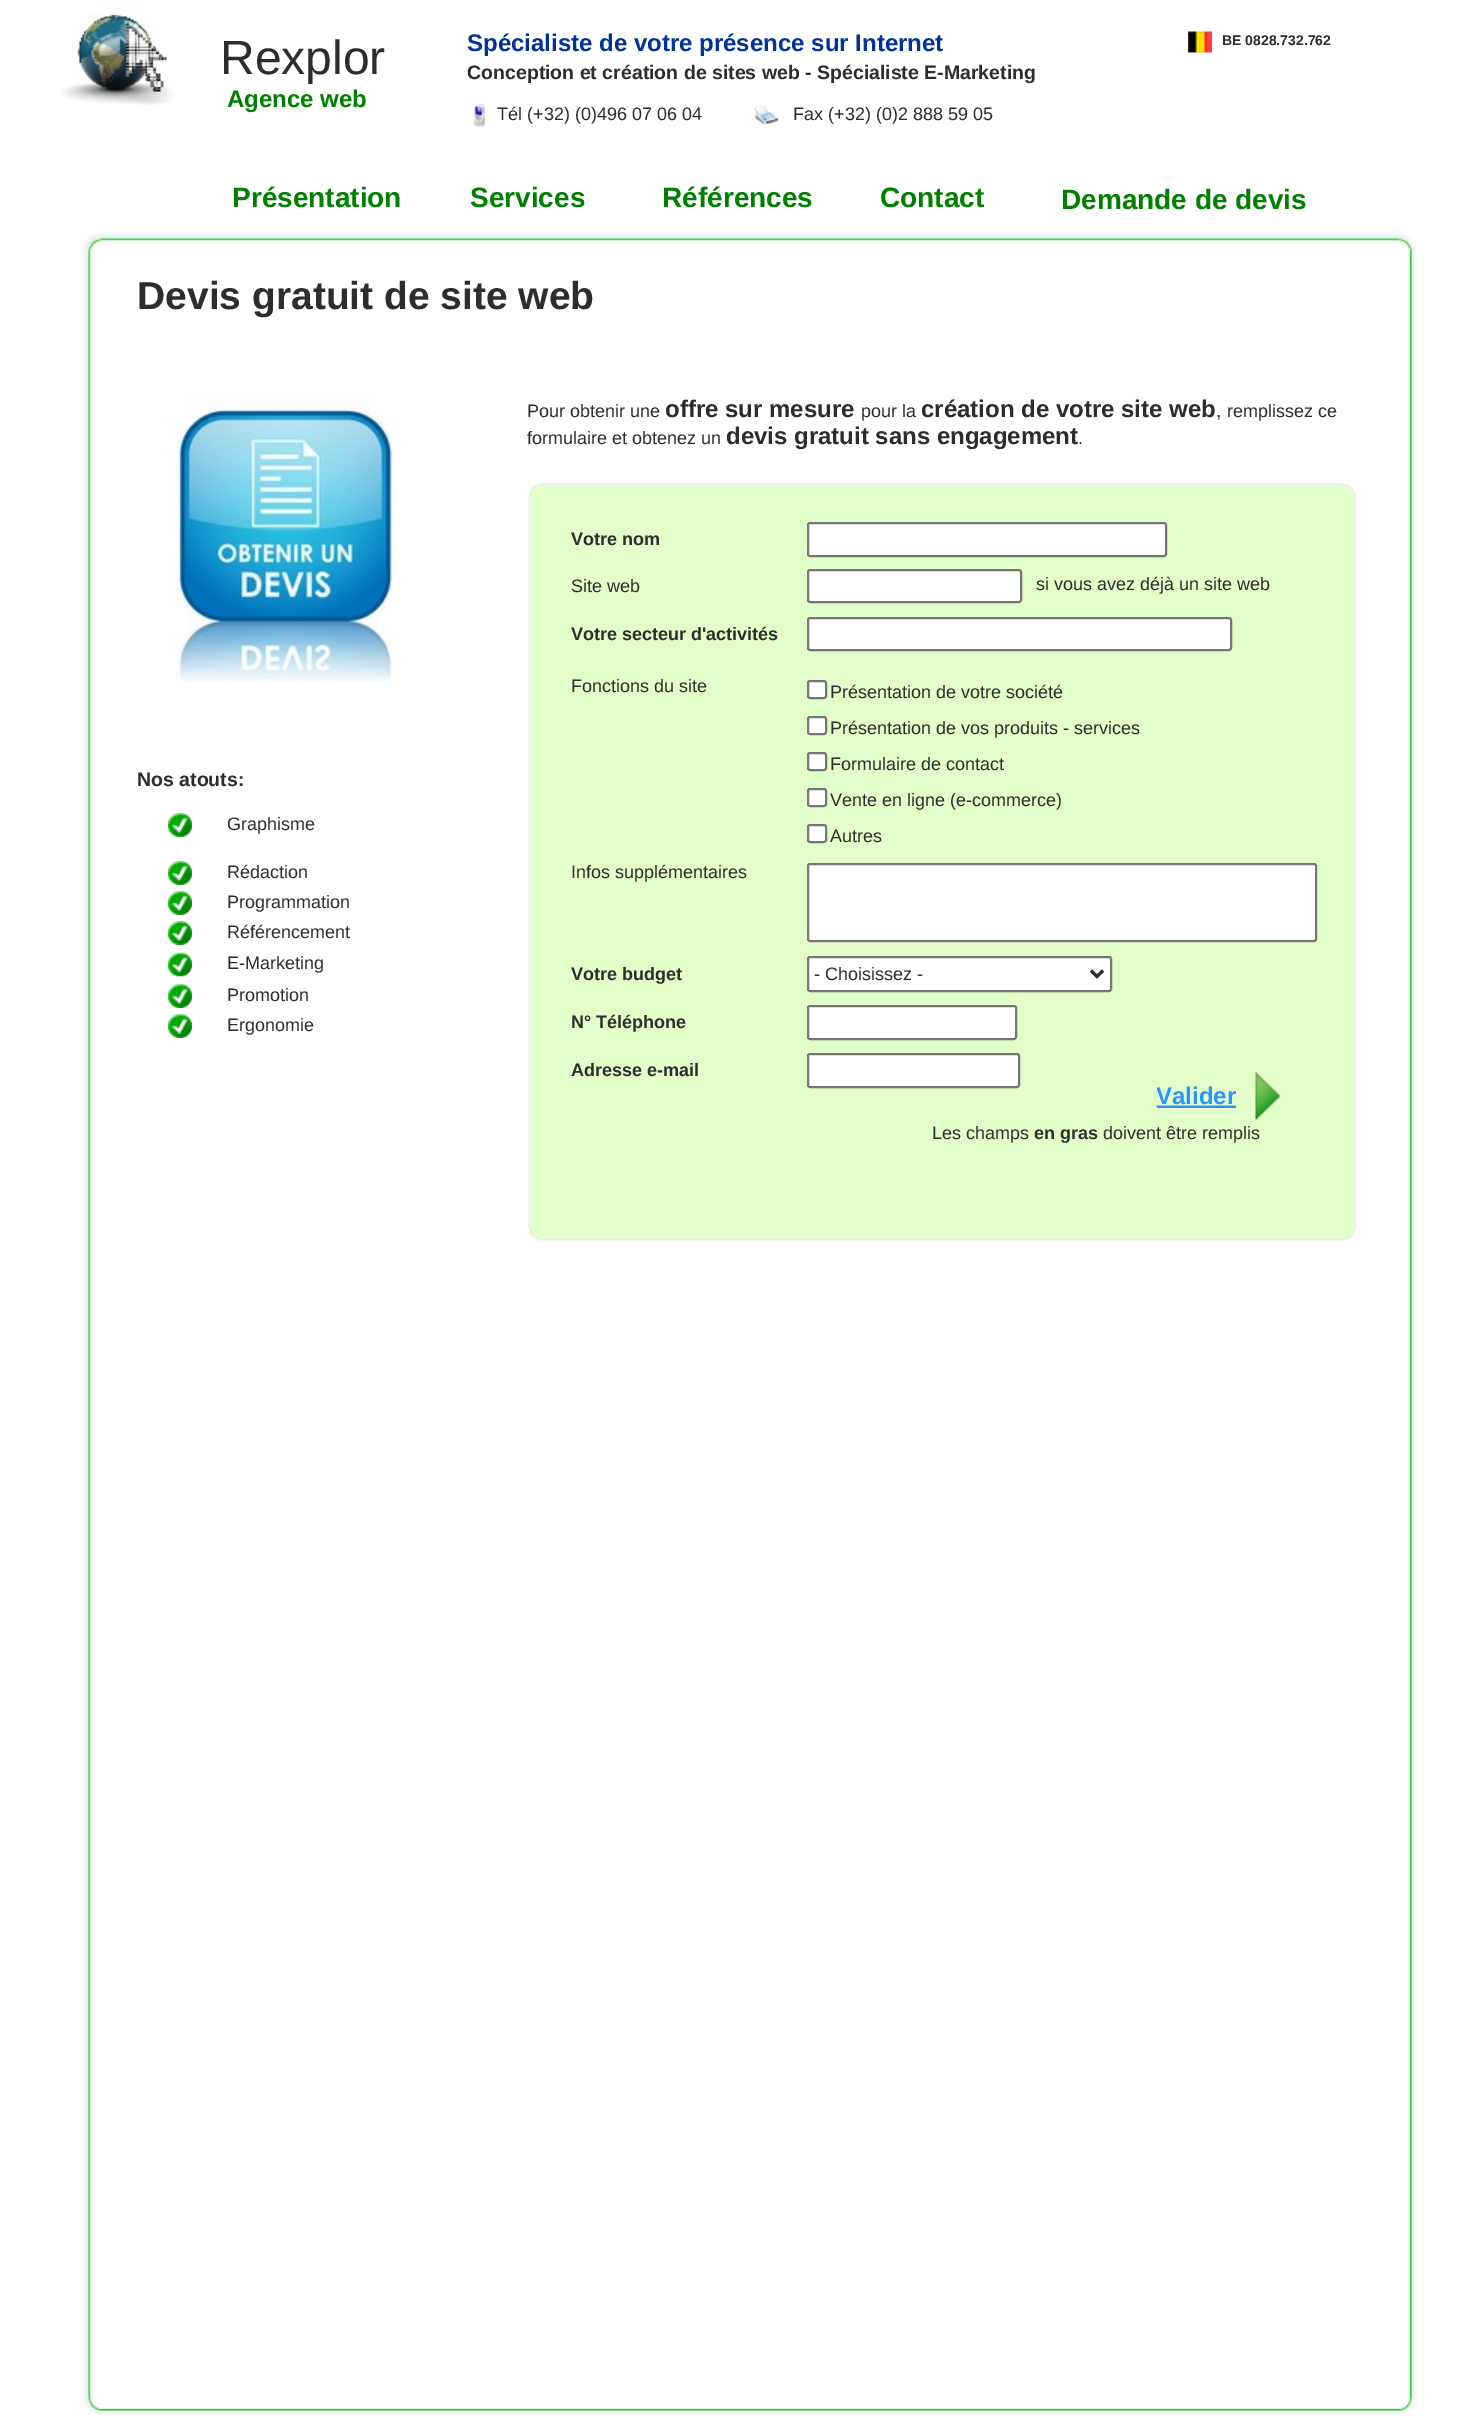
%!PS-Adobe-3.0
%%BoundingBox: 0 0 1468 2420
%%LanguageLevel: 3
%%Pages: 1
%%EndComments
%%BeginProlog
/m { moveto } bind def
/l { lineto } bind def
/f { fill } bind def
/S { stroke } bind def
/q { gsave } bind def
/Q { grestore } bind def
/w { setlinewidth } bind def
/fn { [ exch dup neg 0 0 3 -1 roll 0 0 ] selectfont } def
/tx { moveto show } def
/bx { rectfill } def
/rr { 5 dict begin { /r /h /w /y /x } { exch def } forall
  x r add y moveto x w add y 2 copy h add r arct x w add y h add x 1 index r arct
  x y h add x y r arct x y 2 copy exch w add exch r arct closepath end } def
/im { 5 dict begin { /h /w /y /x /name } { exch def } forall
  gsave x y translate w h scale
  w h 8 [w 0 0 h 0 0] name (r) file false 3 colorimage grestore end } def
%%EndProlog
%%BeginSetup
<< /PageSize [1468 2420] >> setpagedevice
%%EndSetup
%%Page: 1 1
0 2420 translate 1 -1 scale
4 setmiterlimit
1 setgray
0 0 1468 2420 bx
(image0.raw) 60 0 115 105 im
/LiberationSans-Regular 48 fn
0.176 setgray
(Rexplor) 220 74 tx
/LiberationSans-Bold 24 fn
0 0.2 0.6 setrgbcolor
(Spécialiste de votre présence sur Internet) 467 51 tx
(image1.raw) 1188 31 24 22 im
/LiberationSans-Bold 14 fn
0.176 setgray
(BE 0828.732.762) 1222 45 tx
/LiberationSans-Bold 19.5 fn
(Conception et création de sites web - Spécialiste E-Marketing) 467 79 tx
/LiberationSans-Bold 24 fn
0 0.502 0 setrgbcolor
(Agence web) 227 107 tx
(image2.raw) 473 103 12 25 im
/LiberationSans-Regular 18 fn
0.176 setgray
(Tél \(+32\) \(0\)496 07 06 04) 497 120 tx
(image3.raw) 754 105 25 20 im
(Fax \(+32\) \(0\)2 888 59 05) 793 120 tx
/LiberationSans-Bold 28 fn
0 0.502 0 setrgbcolor
(Présentation) 232 207 tx
(Services) 470 207 tx
(Références) 662 207 tx
(Contact) 880 207 tx
(Demande de devis) 1061 209 tx
(image4.raw) 82 232 23 23 im
(image5.raw) 105 232 1290 10 im
(image6.raw) 1395 232 21 23 im
(image7.raw) 82 255 9 2139 im
/LiberationSans-Bold 39 fn
0.176 setgray
(Devis gratuit de site web) 137 309 tx
(image8.raw) 163 393 238 289 im
/LiberationSans-Regular 18 fn
(Pour obtenir une) 527 417 tx
/LiberationSans-Bold 24 fn
(offre sur mesure) 665 417 tx
/LiberationSans-Regular 18 fn
(pour la) 861 417 tx
/LiberationSans-Bold 24 fn
(création de votre site web) 921 417 tx
/LiberationSans-Regular 19.5 fn
(,) 1216 417 tx
/LiberationSans-Regular 18 fn
(remplissez ce) 1227 417 tx
(formulaire et obtenez un) 527 444 tx
/LiberationSans-Bold 24 fn
(devis gratuit sans engagement) 726 444 tx
/LiberationSans-Regular 18 fn
(.) 1078 444 tx
/LiberationSans-Bold 19.5 fn
(Nos atouts:) 137 786 tx
(image9.raw) 528 483 15 15 im
(image10.raw) 543 483 798 15 im
(image11.raw) 1341 483 15 15 im
(image12.raw) 528 498 15 728 im
0.89 1 0.788 setrgbcolor
543 498 798 728 bx
/LiberationSans-Bold 18 fn
0.176 setgray
(Votre nom) 571 545 tx
1 setgray
808 523 358 33 2 rr q f Q
0.463 setgray
2 w
S
/LiberationSans-Regular 18 fn
0.176 setgray
(Site web) 571 592 tx
1 setgray
808 570 213 32 2 rr q f Q
0.463 setgray
S
0.176 setgray
(si vous avez déjà un site web) 1036 590 tx
/LiberationSans-Bold 18 fn
(Votre secteur d'activités) 571 640 tx
1 setgray
808 618 423 32 2 rr q f Q
0.463 setgray
S
/LiberationSans-Regular 18 fn
0.176 setgray
(Fonctions du site) 571 692 tx
1 setgray
808 681 18 17 2 rr q f Q
0.463 setgray
S
0.176 setgray
(Présentation de votre société) 830 698 tx
1 setgray
808 717 18 17 2 rr q f Q
0.463 setgray
S
0.176 setgray
(Présentation de vos produits - services) 830 734 tx
1 setgray
808 753 18 17 2 rr q f Q
0.463 setgray
S
0.176 setgray
(Formulaire de contact) 830 770 tx
1 setgray
808 789 18 17 2 rr q f Q
0.463 setgray
S
0.176 setgray
(Vente en ligne \(e-commerce\)) 830 806 tx
1 setgray
808 825 18 17 2 rr q f Q
0.463 setgray
S
0.176 setgray
(Autres) 830 842 tx
(Infos supplémentaires) 571 878 tx
1 setgray
808 864 508 77 2 rr q f Q
0.463 setgray
S
/LiberationSans-Bold 18 fn
0.176 setgray
(Votre budget) 571 980 tx
1 setgray
808 957 303 34 2 rr q f Q
0.463 setgray
S
0.176 setgray
3 w
1091 970.5 m 1097 976.5 l 1103 970.5 l S
/LiberationSans-Regular 18 fn
(- Choisissez -) 814 980 tx
/LiberationSans-Bold 18 fn
(N° Téléphone) 571 1028 tx
1 setgray
808 1006 208 33 2 rr q f Q
0.463 setgray
2 w
S
0.176 setgray
(Adresse e-mail) 571 1076 tx
1 setgray
808 1054 211 33 2 rr q f Q
0.463 setgray
S
(image13.raw) 1255 1072 25 49 im
(image14.raw) 1156 1105 80 2 im
q
1157 1071 135 50 rectclip
/LiberationSans-Bold 24 fn
0.169 0.576 1 setrgbcolor
(Valider) 1156 1104 tx
Q
0.169 0.576 1 setrgbcolor
1157 1106 79 2 bx
/LiberationSans-Regular 18 fn
0.176 setgray
(Les champs) 932 1139 tx
/LiberationSans-Bold 18 fn
(en gras) 1034 1139 tx
/LiberationSans-Regular 18 fn
(doivent être remplis) 1103 1139 tx
(image15.raw) 1341 498 15 728 im
(image16.raw) 528 1225 15 16 im
(image17.raw) 543 1226 798 15 im
(image18.raw) 1341 1225 15 16 im
(image19.raw) 168 813 24 24 im
(Graphisme) 227 830 tx
(image19.raw) 168 861 24 24 im
(Rédaction) 227 878 tx
(image19.raw) 168 891 24 24 im
(Programmation) 227 908 tx
(image19.raw) 168 921 24 24 im
(Référencement) 227 938 tx
(image20.raw) 168 952 24 25 im
(E-Marketing) 227 969 tx
(image19.raw) 168 984 24 24 im
(Promotion) 227 1001 tx
(image19.raw) 168 1014 24 24 im
(Ergonomie) 227 1031 tx
(image21.raw) 1409 255 7 2139 im
(image22.raw) 82 2394 23 21 im
(image23.raw) 105 2408 1290 7 im
(image24.raw) 1395 2394 21 21 im
showpage
%%EOF
